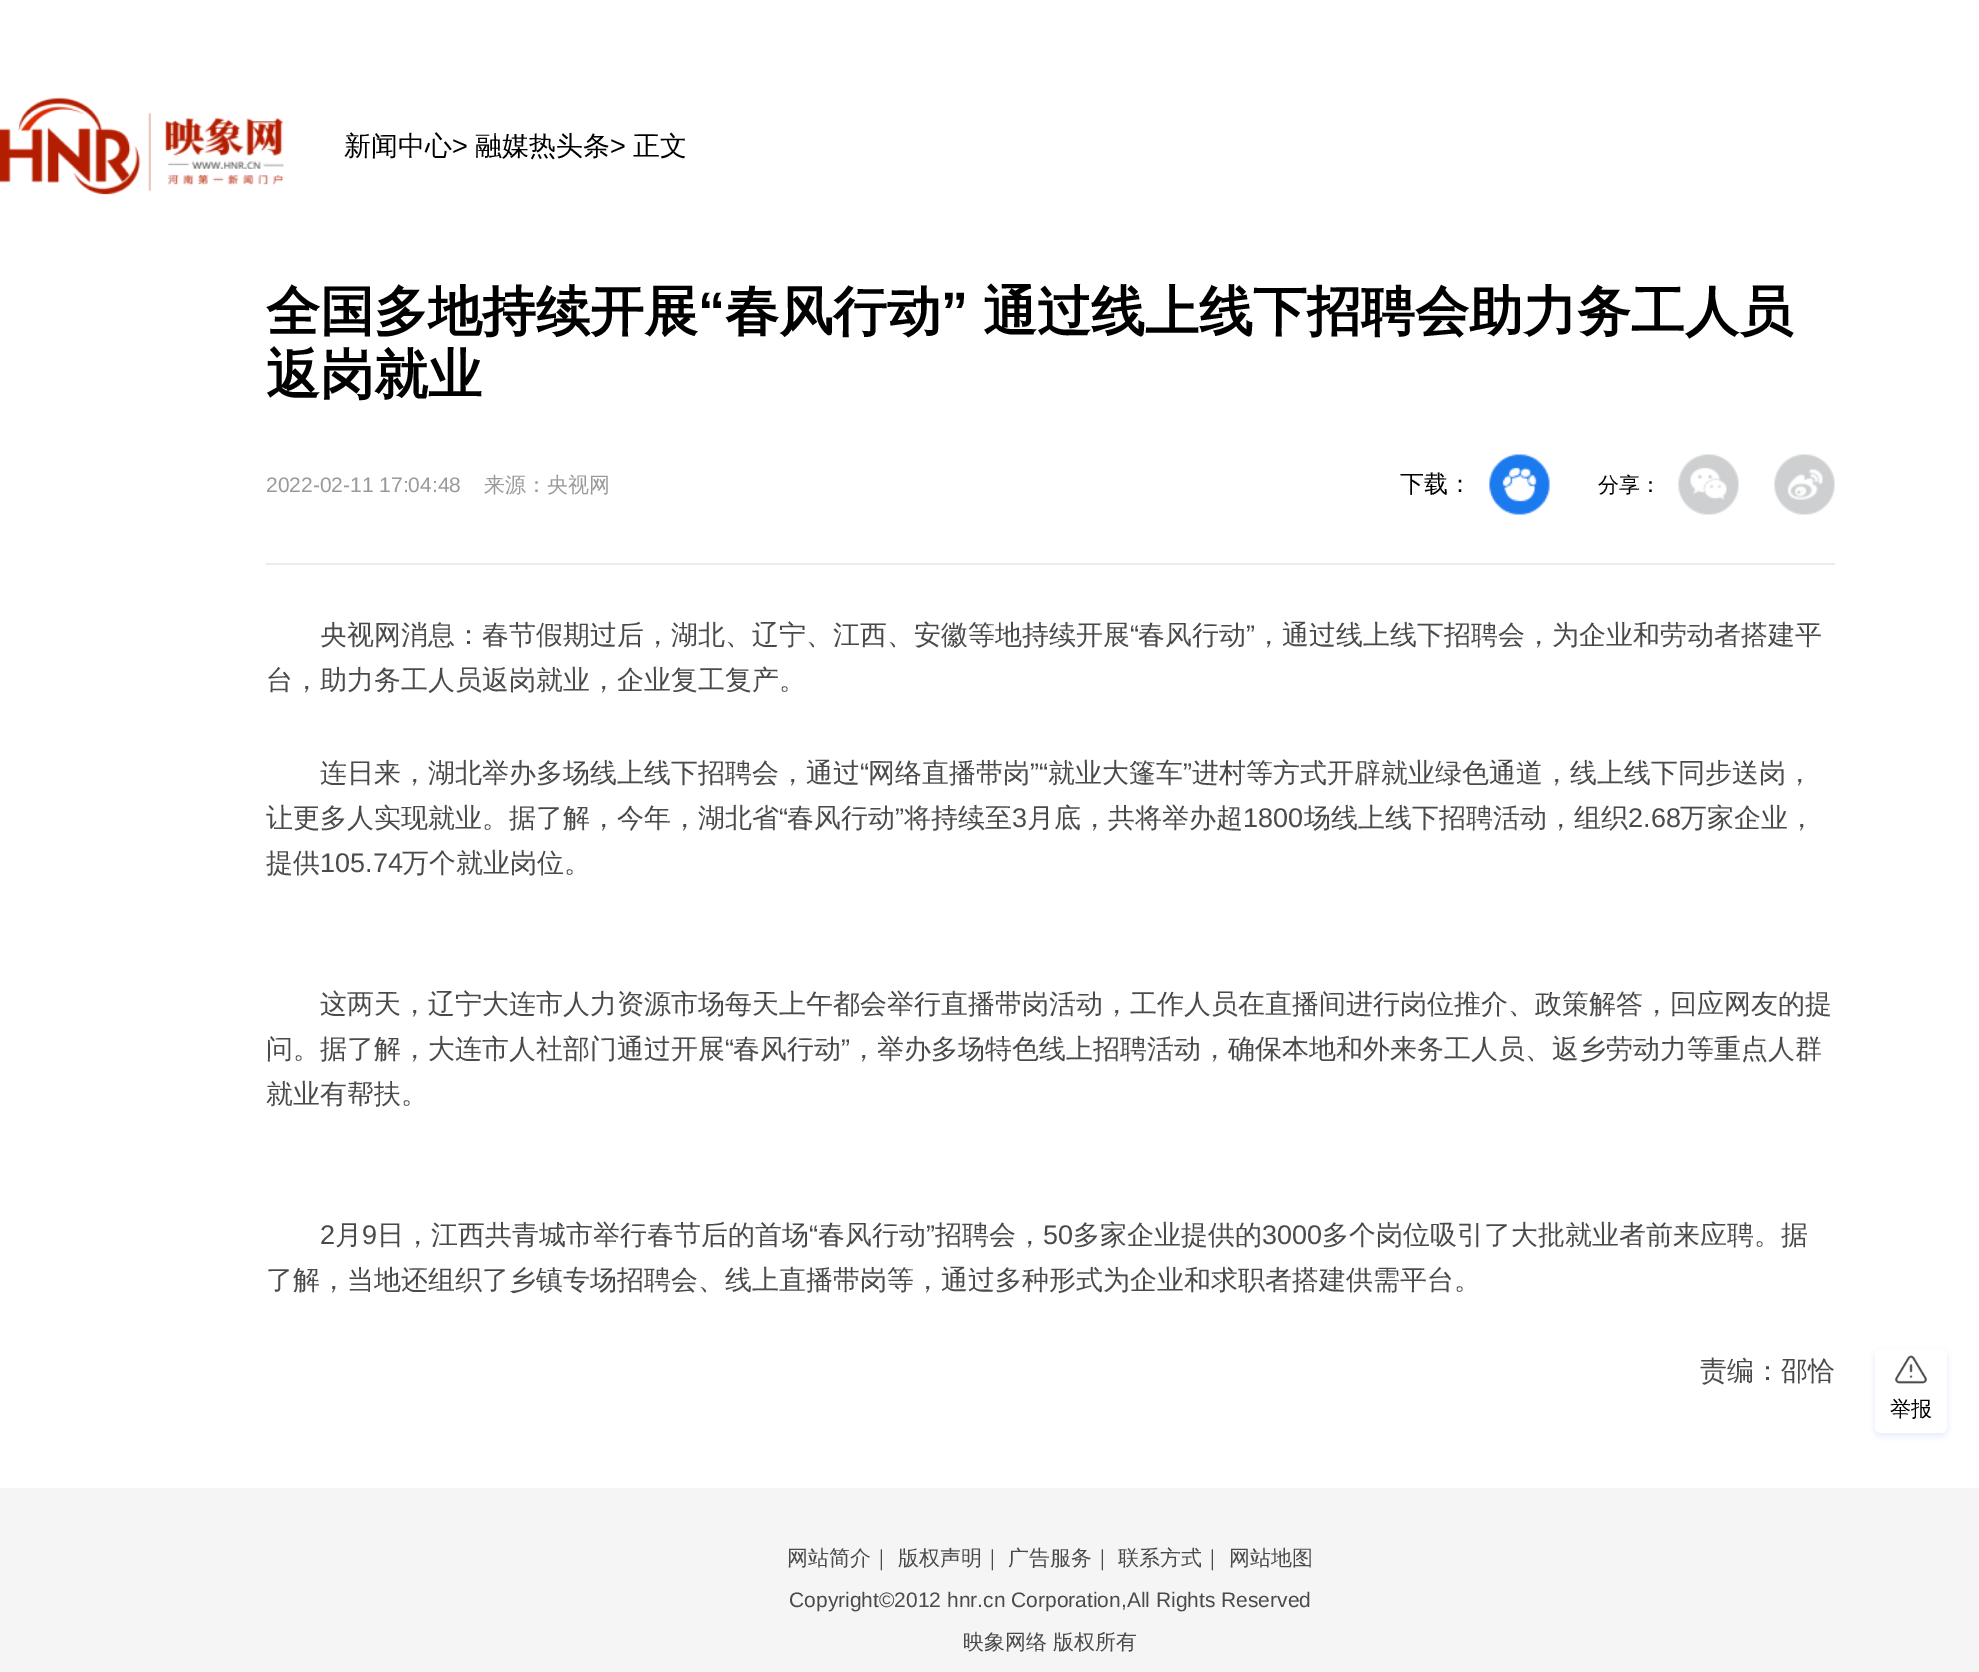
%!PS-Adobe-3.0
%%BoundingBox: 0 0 1979 1672
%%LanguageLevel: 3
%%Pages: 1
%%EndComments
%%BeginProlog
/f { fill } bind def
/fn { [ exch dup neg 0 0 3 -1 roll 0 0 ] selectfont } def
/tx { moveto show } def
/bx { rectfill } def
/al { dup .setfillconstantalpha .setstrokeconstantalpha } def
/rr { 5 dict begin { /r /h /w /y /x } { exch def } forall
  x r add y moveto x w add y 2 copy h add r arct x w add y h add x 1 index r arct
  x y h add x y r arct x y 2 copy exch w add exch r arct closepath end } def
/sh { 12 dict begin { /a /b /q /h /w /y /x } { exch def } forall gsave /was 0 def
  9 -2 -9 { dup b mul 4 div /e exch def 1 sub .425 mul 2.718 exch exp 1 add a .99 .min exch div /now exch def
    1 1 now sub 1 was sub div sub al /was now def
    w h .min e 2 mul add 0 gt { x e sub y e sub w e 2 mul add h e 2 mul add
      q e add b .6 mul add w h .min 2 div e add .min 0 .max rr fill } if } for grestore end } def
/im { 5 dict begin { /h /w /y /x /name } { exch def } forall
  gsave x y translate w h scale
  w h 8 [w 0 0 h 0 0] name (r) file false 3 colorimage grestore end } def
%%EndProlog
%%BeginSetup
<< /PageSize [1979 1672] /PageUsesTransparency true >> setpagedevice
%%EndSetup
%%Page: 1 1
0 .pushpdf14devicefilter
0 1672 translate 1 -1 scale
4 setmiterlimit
1 setgray
0 0 1979 1672 bx
(image0.raw) 0 97 284 98 im
/WenQuanYiZenHei-Medium 27 fn
0 setgray
(新闻中心) 344 155 tx
/LiberationSans-Regular 27 fn
(>) 452 155 tx
/WenQuanYiZenHei-Medium 27 fn
(融媒热头条) 475 155 tx
/LiberationSans-Regular 27 fn
(>) 610 155 tx
/WenQuanYiZenHei-Medium 27 fn
(正文) 633 155 tx
/WenQuanYiZenHei-Bold 54 fn
(全国多地持续开展) 266 330 tx
/LiberationSans-Bold 54 fn
(“) 698 330 tx
/WenQuanYiZenHei-Bold 54 fn
(春风行动) 725 330 tx
/LiberationSans-Bold 54 fn
(”) 941 330 tx
/WenQuanYiZenHei-Bold 54 fn
(通过线上线下招聘会助力务工人员) 983 330 tx
(返岗就业) 266 393 tx
/LiberationSans-Regular 21 fn
0.6 setgray
(2022-02-11 17:04:48) 266 492 tx
/WenQuanYiZenHei-Medium 21 fn
(来源：央视网) 484 492 tx
/WenQuanYiZenHei-Medium 24 fn
0 setgray
(下载：) 1400 492 tx
(image1.raw) 1489 454 61 61 im
/WenQuanYiZenHei-Medium 21 fn
(分享：) 1598 492 tx
(image2.raw) 1678 454 61 61 im
(image3.raw) 1774 454 61 61 im
0.922 setgray
266 563 1569 2 bx
/WenQuanYiZenHei-Medium 27 fn
0.29 setgray
(央视网消息：春节假期过后，湖北、辽宁、江西、安徽等地持续开展) 320 644 tx
/LiberationSans-Regular 27 fn
(“) 1130 644 tx
/WenQuanYiZenHei-Medium 27 fn
(春风行动) 1138 644 tx
/LiberationSans-Regular 27 fn
(”) 1246 644 tx
/WenQuanYiZenHei-Medium 27 fn
(，通过线上线下招聘会，为企业和劳动者搭建平) 1255 644 tx
(台，助力务工人员返岗就业，企业复工复产。) 266 689 tx
(连日来，湖北举办多场线上线下招聘会，通过) 320 782 tx
/LiberationSans-Regular 27 fn
(“) 860 782 tx
/WenQuanYiZenHei-Medium 27 fn
(网络直播带岗) 868 782 tx
/LiberationSans-Regular 27 fn
(”“) 1030 782 tx
/WenQuanYiZenHei-Medium 27 fn
(就业大篷车) 1048 782 tx
/LiberationSans-Regular 27 fn
(”) 1183 782 tx
/WenQuanYiZenHei-Medium 27 fn
(进村等方式开辟就业绿色通道，线上线下同步送岗，) 1192 782 tx
(让更多人实现就业。据了解，今年，湖北省) 266 827 tx
/LiberationSans-Regular 27 fn
(“) 779 827 tx
/WenQuanYiZenHei-Medium 27 fn
(春风行动) 787 827 tx
/LiberationSans-Regular 27 fn
(”) 895 827 tx
/WenQuanYiZenHei-Medium 27 fn
(将持续至) 904 827 tx
/LiberationSans-Regular 27 fn
(3) 1012 827 tx
/WenQuanYiZenHei-Medium 27 fn
(月底，共将举办超) 1027 827 tx
/LiberationSans-Regular 27 fn
(1800) 1243 827 tx
/WenQuanYiZenHei-Medium 27 fn
(场线上线下招聘活动，组织) 1304 827 tx
/LiberationSans-Regular 27 fn
(2.68) 1628 827 tx
/WenQuanYiZenHei-Medium 27 fn
(万家企业，) 1680 827 tx
(提供) 266 872 tx
/LiberationSans-Regular 27 fn
(105.74) 320 872 tx
/WenQuanYiZenHei-Medium 27 fn
(万个就业岗位。) 402 872 tx
(这两天，辽宁大连市人力资源市场每天上午都会举行直播带岗活动，工作人员在直播间进行岗位推介、政策解答，回应网友的提) 320 1013 tx
(问。据了解，大连市人社部门通过开展) 266 1058 tx
/LiberationSans-Regular 27 fn
(“) 725 1058 tx
/WenQuanYiZenHei-Medium 27 fn
(春风行动) 733 1058 tx
/LiberationSans-Regular 27 fn
(”) 841 1058 tx
/WenQuanYiZenHei-Medium 27 fn
(，举办多场特色线上招聘活动，确保本地和外来务工人员、返乡劳动力等重点人群) 850 1058 tx
(就业有帮扶。) 266 1103 tx
/LiberationSans-Regular 27 fn
(2) 320 1244 tx
/WenQuanYiZenHei-Medium 27 fn
(月) 335 1244 tx
/LiberationSans-Regular 27 fn
(9) 362 1244 tx
/WenQuanYiZenHei-Medium 27 fn
(日，江西共青城市举行春节后的首场) 377 1244 tx
/LiberationSans-Regular 27 fn
(“) 809 1244 tx
/WenQuanYiZenHei-Medium 27 fn
(春风行动) 818 1244 tx
/LiberationSans-Regular 27 fn
(”) 926 1244 tx
/WenQuanYiZenHei-Medium 27 fn
(招聘会，) 935 1244 tx
/LiberationSans-Regular 27 fn
(50) 1043 1244 tx
/WenQuanYiZenHei-Medium 27 fn
(多家企业提供的) 1073 1244 tx
/LiberationSans-Regular 27 fn
(3000) 1262 1244 tx
/WenQuanYiZenHei-Medium 27 fn
(多个岗位吸引了大批就业者前来应聘。据) 1322 1244 tx
(了解，当地还组织了乡镇专场招聘会、线上直播带岗等，通过多种形式为企业和求职者搭建供需平台。) 266 1289 tx
(责编：邵恰) 1700 1380 tx
0.961 setgray
0 1488 1979 184 bx
/WenQuanYiZenHei-Medium 21 fn
0.29 setgray
(网站简介｜) 787 1565 tx
(版权声明｜) 898 1565 tx
(广告服务｜) 1008 1565 tx
(联系方式｜) 1118 1565 tx
(网站地图) 1229 1565 tx
/LiberationSans-Regular 21 fn
(Copyright©2012 hnr.cn Corporation,All Rights Reserved) 789 1607 tx
/WenQuanYiZenHei-Medium 21 fn
(映象网络 版权所有) 963 1649 tx
0.11 0.478 0.937 setrgbcolor
1875 1352 72 84 6 3 0.12 sh
1 setgray
1875 1349 72 84 6 rr f
(image4.raw) 1895 1355 32 29 im
0 setgray
(举报) 1890 1416 tx
.poppdf14devicefilter showpage
%%EOF
